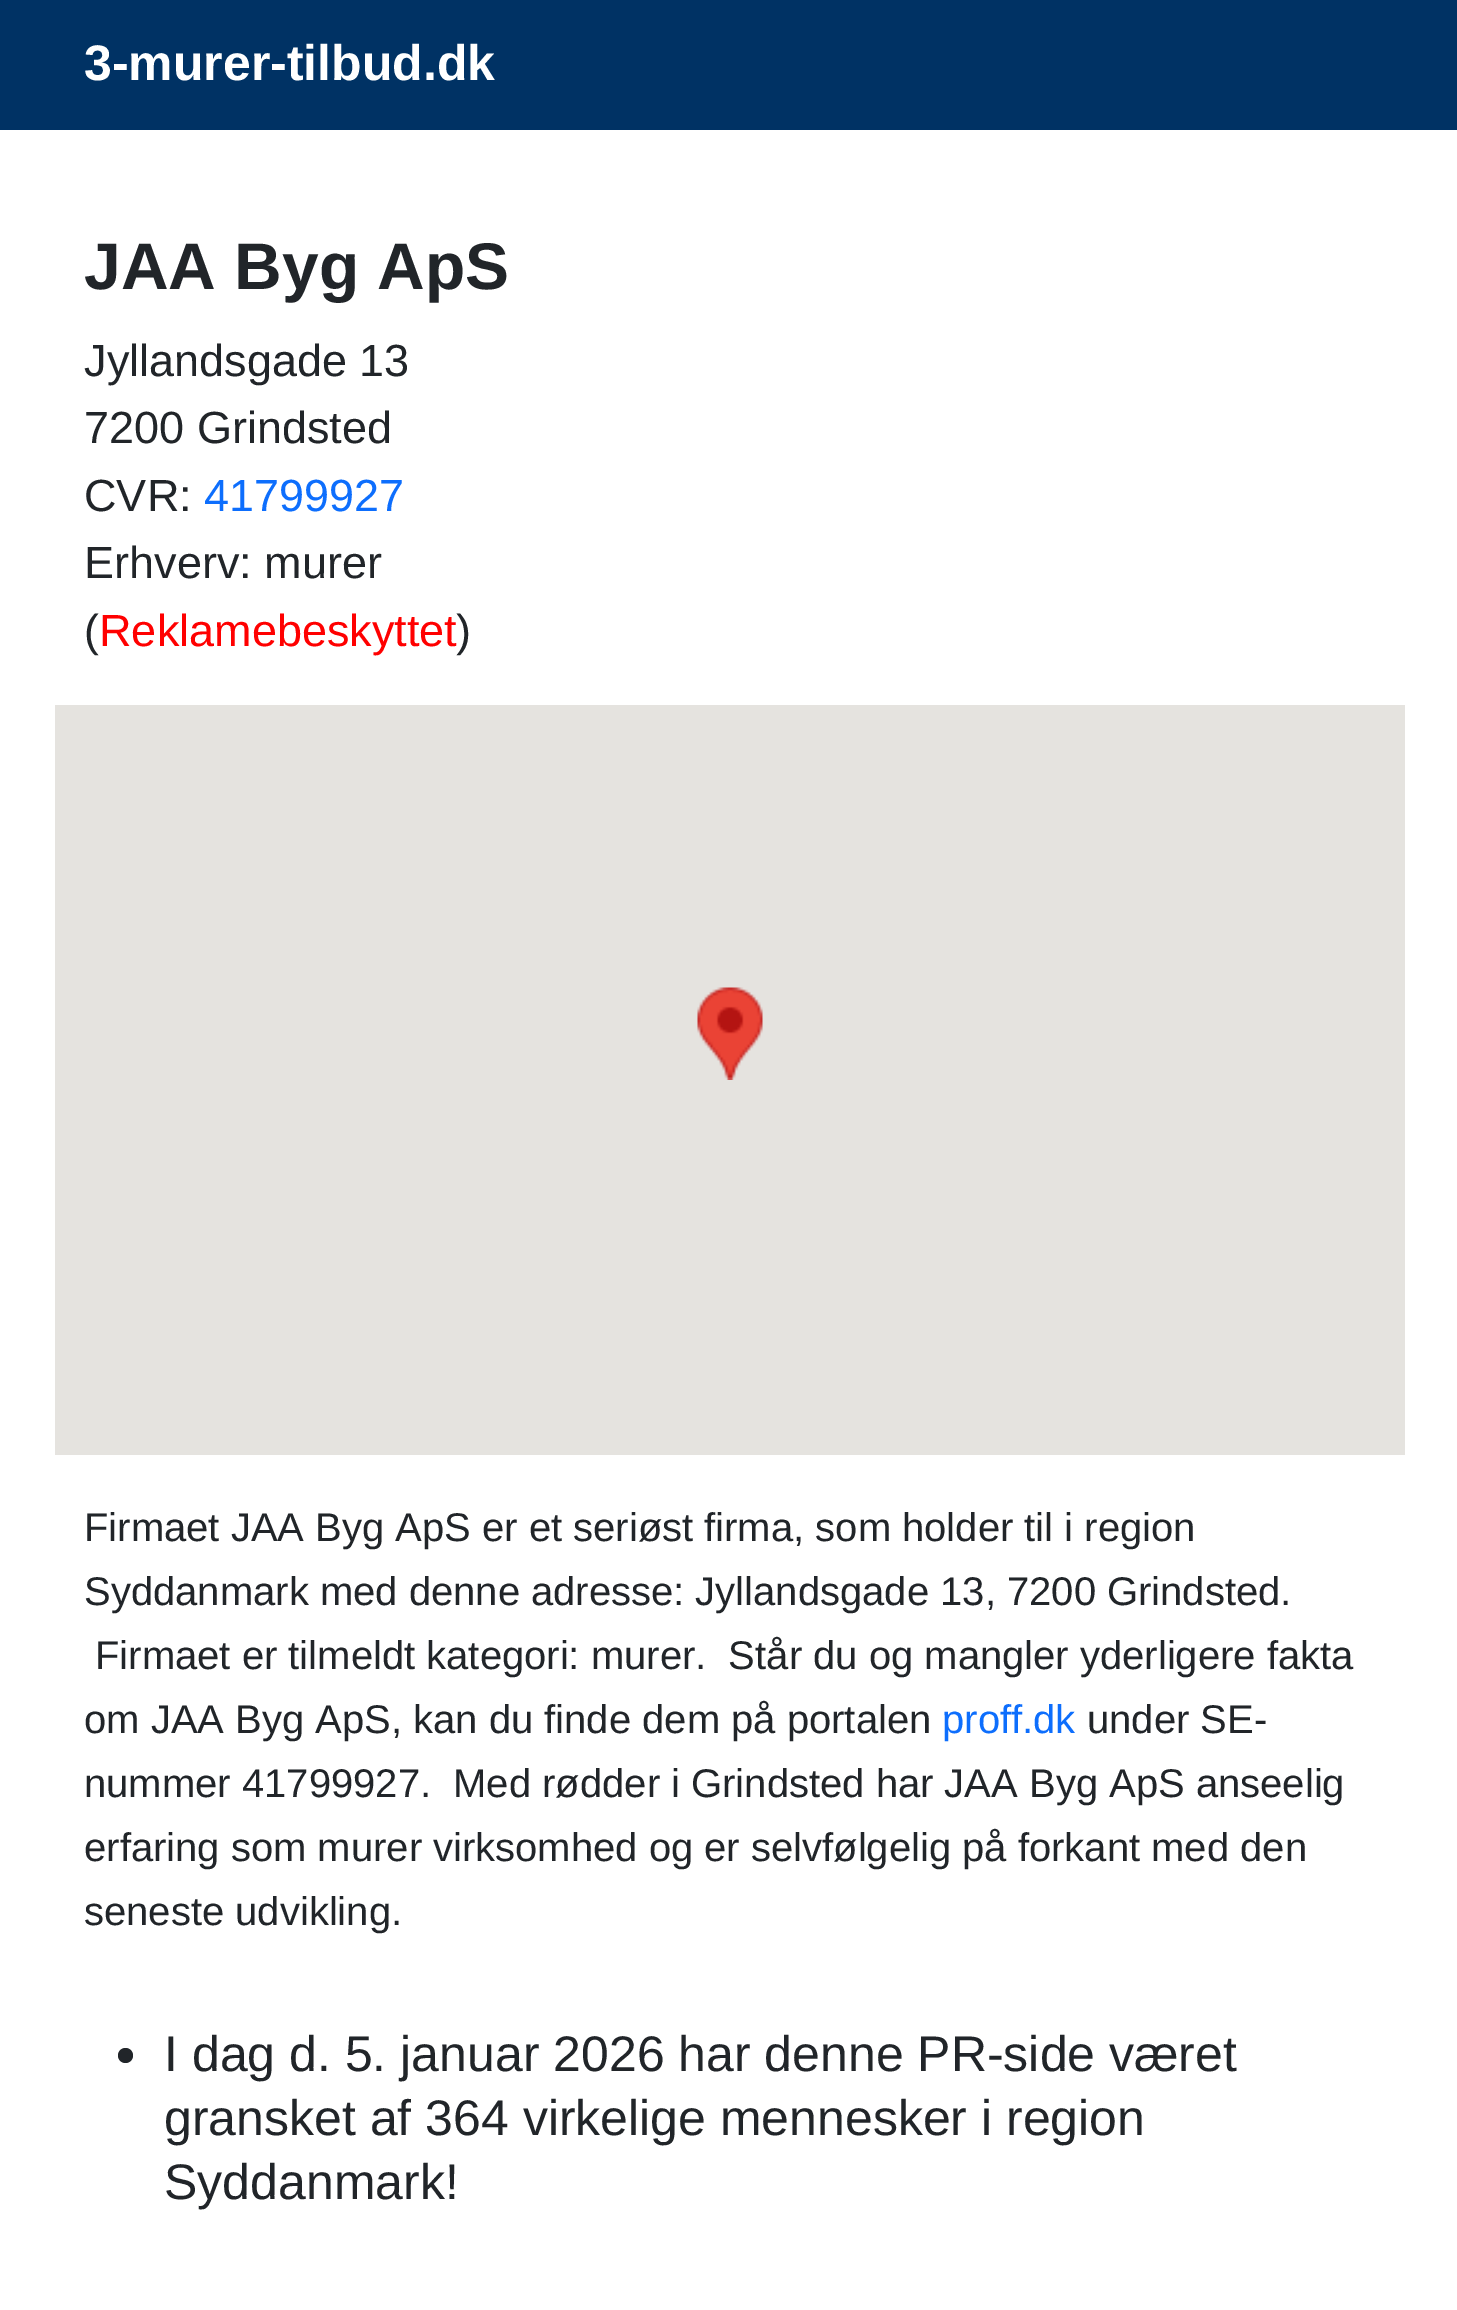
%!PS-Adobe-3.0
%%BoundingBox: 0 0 1457 2310
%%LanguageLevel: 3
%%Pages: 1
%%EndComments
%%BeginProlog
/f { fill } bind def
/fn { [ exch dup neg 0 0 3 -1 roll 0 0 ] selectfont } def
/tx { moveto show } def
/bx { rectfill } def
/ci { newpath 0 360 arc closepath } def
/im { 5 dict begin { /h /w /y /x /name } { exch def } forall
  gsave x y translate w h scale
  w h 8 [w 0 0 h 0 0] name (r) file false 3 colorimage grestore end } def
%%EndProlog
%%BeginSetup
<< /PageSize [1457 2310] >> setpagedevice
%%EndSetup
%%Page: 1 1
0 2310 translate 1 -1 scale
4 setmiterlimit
1 setgray
0 0 1457 2310 bx
0 0.196 0.392 setrgbcolor
0 0 1457 130 bx
/LiberationSans-Bold 50 fn
1 setgray
(3-murer-tilbud.dk) 84 80 tx
/LiberationSans-Bold 66 fn
0.129 0.145 0.161 setrgbcolor
(JAA Byg ApS) 84 289 tx
/LiberationSans-Regular 45 fn
(Jyllandsgade 13) 84 376 tx
(7200 Grindsted) 84 443 tx
(CVR:) 84 511 tx
0.051 0.431 0.992 setrgbcolor
(41799927) 204 511 tx
0.129 0.145 0.161 setrgbcolor
(Erhverv: murer) 84 578 tx
(\() 84 646 tx
1 0 0 setrgbcolor
(Reklamebeskyttet) 99 646 tx
0.129 0.145 0.161 setrgbcolor
(\)) 456 646 tx
0.898 0.89 0.875 setrgbcolor
55 705 1350 750 bx
(image0.raw) 697 987 66 93 im
/LiberationSans-Regular 40 fn
0.129 0.145 0.161 setrgbcolor
(Firmaet JAA Byg ApS er et seriøst firma, som holder til i region) 84 1541 tx
(Syddanmark med denne adresse: Jyllandsgade 13, 7200 Grindsted.) 84 1605 tx
(Firmaet er tilmeldt kategori: murer.  Står du og mangler yderligere fakta) 95 1669 tx
(om JAA Byg ApS, kan du finde dem på portalen) 84 1733 tx
0.051 0.431 0.992 setrgbcolor
(proff.dk) 942 1733 tx
0.129 0.145 0.161 setrgbcolor
(under SE-) 1087 1733 tx
(nummer 41799927.  Med rødder i Grindsted har JAA Byg ApS anseelig) 84 1797 tx
(erfaring som murer virksomhed og er selvfølgelig på forkant med den) 84 1861 tx
(seneste udvikling.) 84 1925 tx
125.5 2055.5 7.5 ci f
/LiberationSans-Regular 50 fn
(I dag d. 5. januar 2026 har denne PR-side været) 164 2071 tx
(gransket af 364 virkelige mennesker i region) 164 2135 tx
(Syddanmark!) 164 2199 tx
showpage
%%EOF
